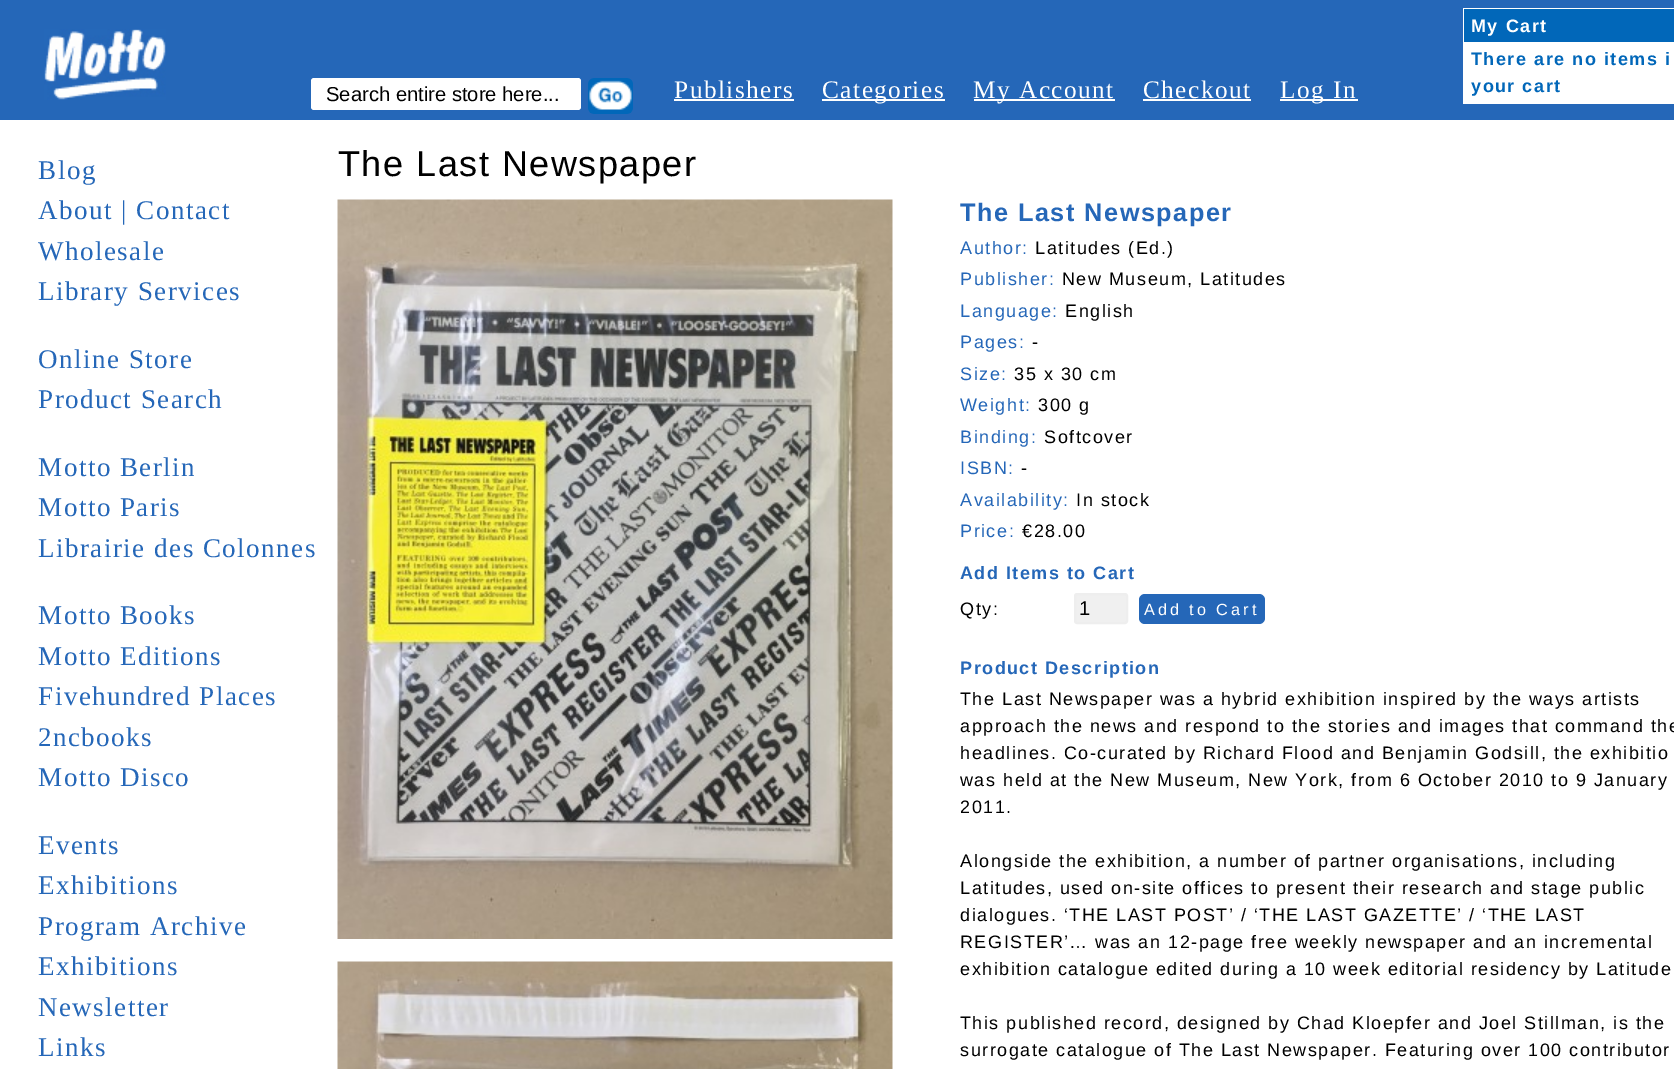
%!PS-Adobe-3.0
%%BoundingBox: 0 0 1674 1069
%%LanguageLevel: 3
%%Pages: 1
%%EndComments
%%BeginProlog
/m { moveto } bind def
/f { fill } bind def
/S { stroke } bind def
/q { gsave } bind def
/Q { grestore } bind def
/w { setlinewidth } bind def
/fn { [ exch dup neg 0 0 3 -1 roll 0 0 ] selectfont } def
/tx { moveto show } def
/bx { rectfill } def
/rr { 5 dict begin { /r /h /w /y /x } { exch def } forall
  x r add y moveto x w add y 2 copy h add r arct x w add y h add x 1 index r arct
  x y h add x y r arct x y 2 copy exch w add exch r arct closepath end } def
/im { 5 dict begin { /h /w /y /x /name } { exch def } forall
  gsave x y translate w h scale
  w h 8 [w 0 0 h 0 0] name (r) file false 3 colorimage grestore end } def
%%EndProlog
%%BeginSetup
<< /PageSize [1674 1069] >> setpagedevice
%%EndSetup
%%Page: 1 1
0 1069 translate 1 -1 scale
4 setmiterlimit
1 setgray
0 0 1674 1069 bx
0.145 0.404 0.722 setrgbcolor
0 0 1674 120 bx
(image0.raw) 44 29 122 71 im
1 setgray
311 78 270 32 3 rr f
/LiberationSans-Regular 20.2 fn
0 setgray
(Search entire store here...) 326 101 tx
(image1.raw) 588 78 45 36 im
/LiberationSerif-Regular 25.25 fn
1 setgray
674 98 m 1.5 0 (Publishers) ashow
674 99 120 2 bx
822 99 123 2 bx
822 98 m 1.5 0 (Categories) ashow
974 99 141 2 bx
973 98 m 1.5 0 (My Account) ashow
1143 98 m 1.5 0 (Checkout) ashow
1143 99 108 2 bx
1280 99 78 2 bx
1280 98 m 1.5 0 (Log In) ashow
1463 8 211 96 bx
0.004 0.404 0.725 setrgbcolor
1464 9 210 33 bx
/LiberationSans-Bold 18 fn
1 setgray
1471 32 m 1.5 0 (My Cart) ashow
0.004 0.404 0.725 setrgbcolor
1471 65 m 1.5 0 (There are no items i) ashow
1471 92 m 1.5 0 (your cart) ashow
/LiberationSerif-Regular 27 fn
0.145 0.404 0.722 setrgbcolor
38 179 m 1.5 0 (Blog) ashow
38 219 m 1.5 0 (About | Contact) ashow
38 260 m 1.5 0 (Wholesale) ashow
38 300 m 1.5 0 (Library Services) ashow
38 368 m 1.5 0 (Online Store) ashow
38 408 m 1.5 0 (Product Search) ashow
38 476 m 1.5 0 (Motto Berlin) ashow
38 516 m 1.5 0 (Motto Paris) ashow
38 557 m 1.5 0 (Librairie des Colonnes) ashow
38 624 m 1.5 0 (Motto Books) ashow
38 665 m 1.5 0 (Motto Editions) ashow
38 705 m 1.5 0 (Fivehundred Places) ashow
38 746 m 1.5 0 (2ncbooks) ashow
38 786 m 1.5 0 (Motto Disco) ashow
38 854 m 1.5 0 (Events) ashow
38 894 m 1.5 0 (Exhibitions) ashow
38 935 m 1.5 0 (Program Archive) ashow
38 975 m 1.5 0 (Exhibitions) ashow
38 1016 m 1.5 0 (Newsletter) ashow
38 1056 m 1.5 0 (Links) ashow
/LiberationSans-Regular 36 fn
0 setgray
338 176 m 1.5 0 (The Last Newspaper) ashow
(image2.raw) 337 199 556 740 im
(image3.raw) 337 961 556 108 im
/LiberationSans-Bold 25.25 fn
0.145 0.404 0.722 setrgbcolor
960 221 m 1.5 0 (The Last Newspaper) ashow
/LiberationSans-Regular 18 fn
960 254 m 1.5 0 (Author:) ashow
0 setgray
1035 254 m 1.5 0 (Latitudes \(Ed.\)) ashow
0.145 0.404 0.722 setrgbcolor
960 285 m 1.5 0 (Publisher:) ashow
0 setgray
1062 285 m 1.5 0 (New Museum, Latitudes) ashow
0.145 0.404 0.722 setrgbcolor
960 317 m 1.5 0 (Language:) ashow
0 setgray
1065 317 m 1.5 0 (English) ashow
0.145 0.404 0.722 setrgbcolor
960 348 m 1.5 0 (Pages:) ashow
0 setgray
1032 348 m 1.5 0 (-) ashow
0.145 0.404 0.722 setrgbcolor
960 380 m 1.5 0 (Size:) ashow
0 setgray
1014 380 m 1.5 0 (35 x 30 cm) ashow
0.145 0.404 0.722 setrgbcolor
960 411 m 1.5 0 (Weight:) ashow
0 setgray
1038 411 m 1.5 0 (300 g) ashow
0.145 0.404 0.722 setrgbcolor
960 443 m 1.5 0 (Binding:) ashow
0 setgray
1044 443 m 1.5 0 (Softcover) ashow
0.145 0.404 0.722 setrgbcolor
960 474 m 1.5 0 (ISBN:) ashow
0 setgray
1021 474 m 1.5 0 (-) ashow
0.145 0.404 0.722 setrgbcolor
960 506 m 1.5 0 (Availability:) ashow
0 setgray
1076 506 m 1.5 0 (In stock) ashow
0.145 0.404 0.722 setrgbcolor
960 537 m 1.5 0 (Price:) ashow
0 setgray
1022 537 m 1.5 0 (€28.00) ashow
/LiberationSans-Bold 18 fn
0.145 0.404 0.722 setrgbcolor
960 579 m 1.5 0 (Add Items to Cart) ashow
/LiberationSans-Regular 18 fn
0 setgray
960 615 m 1.5 0 (Qty:) ashow
0.941 setgray
1075 594 52 29 2 rr q f Q
0.933 setgray
2 w
S
/LiberationSans-Regular 20 fn
0 setgray
(1) 1079 615 tx
0.145 0.404 0.722 setrgbcolor
1139 594 126 30 6 rr f
/LiberationSans-Regular 16.25 fn
1 setgray
1144 615 m 3 0 (Add to Cart) ashow
/LiberationSans-Bold 18 fn
0.145 0.404 0.722 setrgbcolor
960 674 m 1.5 0 (Product Description) ashow
/LiberationSans-Regular 18 fn
0 setgray
960 705 m 1.5 0 (The Last Newspaper was a hybrid exhibition inspired by the ways artists) ashow
960 732 m 1.5 0 (approach the news and respond to the stories and images that command the) ashow
960 759 m 1.5 0 (headlines. Co-curated by Richard Flood and Benjamin Godsill, the exhibitio) ashow
960 786 m 1.5 0 (was held at the New Museum, New York, from 6 October 2010 to 9 January) ashow
960 813 m 1.5 0 (2011.) ashow
960 867 m 1.5 0 (Alongside the exhibition, a number of partner organisations, including) ashow
960 894 m 1.5 0 (Latitudes, used on-site offices to present their research and stage public) ashow
960 921 m 1.5 0 (dialogues. ‘THE LAST POST’ / ‘THE LAST GAZETTE’ / ‘THE LAST) ashow
960 948 m 1.5 0 (REGISTER’… was an 12-page free weekly newspaper and an incremental) ashow
960 975 m 1.5 0 (exhibition catalogue edited during a 10 week editorial residency by Latitude) ashow
960 1029 m 1.5 0 (This published record, designed by Chad Kloepfer and Joel Stillman, is the) ashow
960 1056 m 1.5 0 (surrogate catalogue of The Last Newspaper. Featuring over 100 contributor) ashow
showpage
%%EOF
